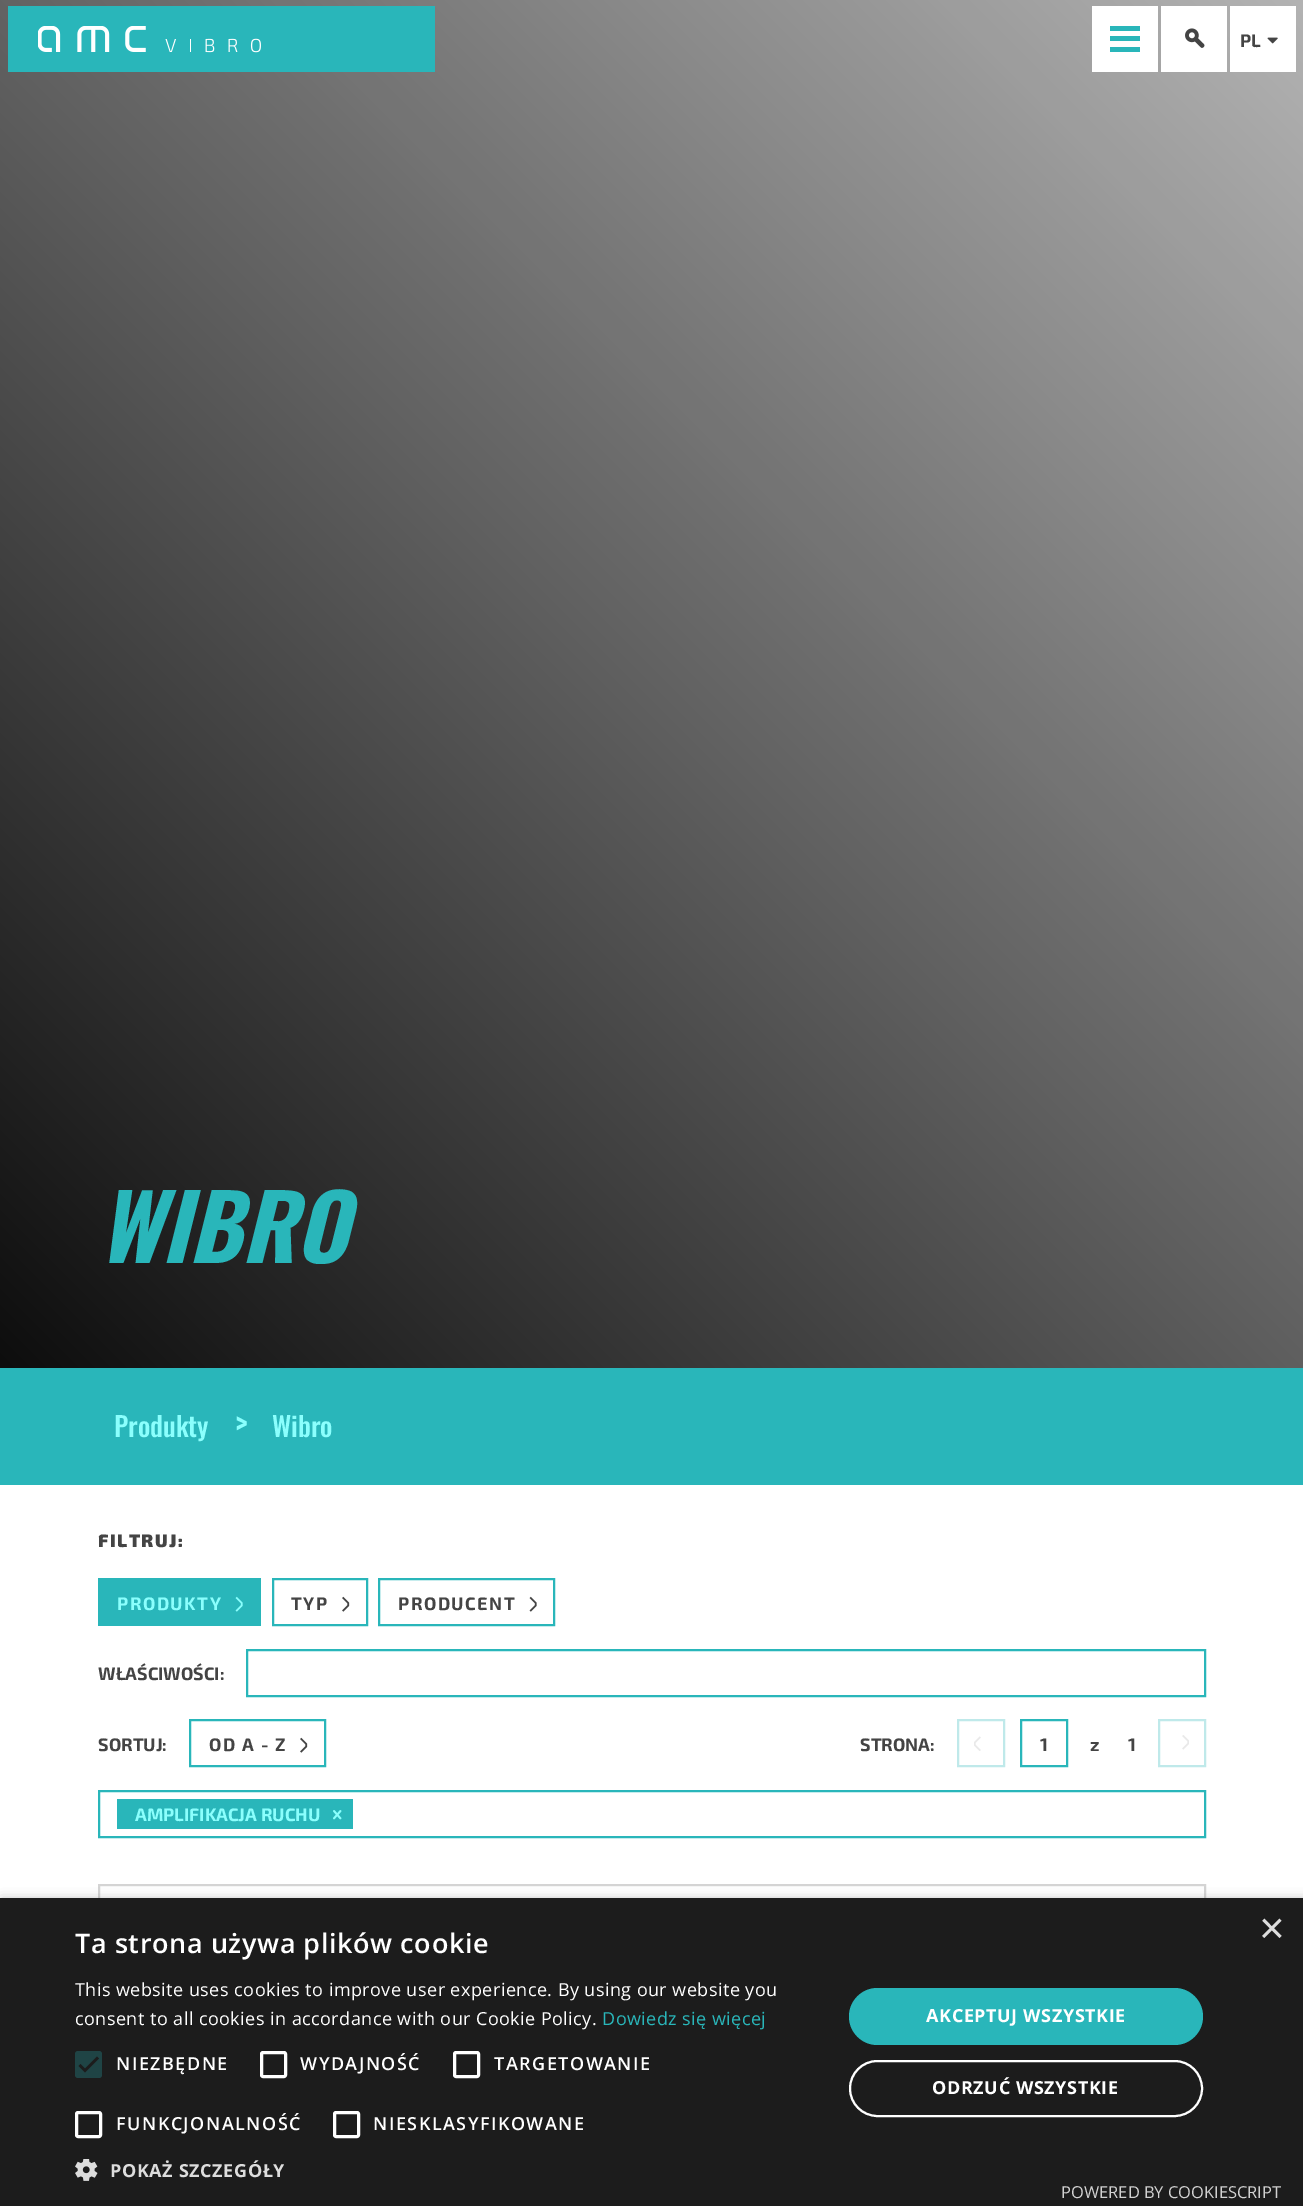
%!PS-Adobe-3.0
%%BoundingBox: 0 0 1303 2206
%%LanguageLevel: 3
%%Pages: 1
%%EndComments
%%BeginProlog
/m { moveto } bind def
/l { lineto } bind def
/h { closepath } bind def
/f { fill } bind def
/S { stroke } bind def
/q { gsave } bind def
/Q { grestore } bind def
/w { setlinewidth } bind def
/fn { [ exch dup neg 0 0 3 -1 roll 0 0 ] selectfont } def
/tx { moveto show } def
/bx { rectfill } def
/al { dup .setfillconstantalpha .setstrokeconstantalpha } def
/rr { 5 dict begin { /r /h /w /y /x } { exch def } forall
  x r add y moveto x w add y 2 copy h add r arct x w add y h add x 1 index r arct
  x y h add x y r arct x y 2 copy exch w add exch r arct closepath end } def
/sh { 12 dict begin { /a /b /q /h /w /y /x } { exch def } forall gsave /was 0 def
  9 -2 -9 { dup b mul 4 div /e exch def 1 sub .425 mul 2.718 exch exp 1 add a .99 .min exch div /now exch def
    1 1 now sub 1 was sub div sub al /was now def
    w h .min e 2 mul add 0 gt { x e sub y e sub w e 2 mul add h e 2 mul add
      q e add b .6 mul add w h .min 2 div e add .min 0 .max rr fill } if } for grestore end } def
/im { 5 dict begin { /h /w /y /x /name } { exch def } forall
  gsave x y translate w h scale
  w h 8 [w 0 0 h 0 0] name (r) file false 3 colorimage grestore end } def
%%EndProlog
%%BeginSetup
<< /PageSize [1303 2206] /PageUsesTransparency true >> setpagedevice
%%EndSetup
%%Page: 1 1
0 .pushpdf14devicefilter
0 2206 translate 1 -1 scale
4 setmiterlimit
1 setgray
0 0 1303 2206 bx
q 0 0 m 1303 0 l 1303 1368 l 0 1368 l h clip newpath
<< /ShadingType 2 /ColorSpace /DeviceRGB /Coords [-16 1352 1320 16] /Extend [true true] /Function << /FunctionType 3 /Domain [0 1] /Functions [<< /FunctionType 2 /Domain [0 1] /C0 [0.051 0.051 0.051] /C1 [0.451 0.451 0.451] /N 1 >> << /FunctionType 2 /Domain [0 1] /C0 [0.451 0.451 0.451] /C1 [0.612 0.612 0.612] /N 1 >> << /FunctionType 2 /Domain [0 1] /C0 [0.612 0.612 0.612] /C1 [0.702 0.702 0.702] /N 1 >>] /Bounds [0.61 0.86] /Encode [0 1 0 1 0 1] >> >> shfill Q
0.161 0.714 0.729 setrgbcolor
8 6 427 66 bx
(image0.raw) 38 26 223 27 im
1 setgray
1092 6 66 66 bx
0.161 0.714 0.729 setrgbcolor
1110 26 30 5 bx
1110 36 30 5 bx
1110 47 30 5 bx
1 setgray
1161 6 66 66 bx
(image1.raw) 1185 28 20 20 im
1230 6 66 66 bx
/Exo2-Bold 18 fn
0.267 setgray
(PL) 1240 47 tx
(image2.raw) 1267 37 11 7 im
/Oswald-BoldItalic 90 fn
0.161 0.714 0.729 setrgbcolor
(WIBRO) 98 1263 tx
0 1368 1303 117 bx
/Oswald-Medium 27 fn
0.545 1 0.992 setrgbcolor
(Produkty) 114 1437 tx
/Oswald-Medium 33 fn
(>) 235 1437 tx
/Oswald-Medium 27 fn
(Wibro) 272 1437 tx
/Exo2-Black 18 fn
0.267 setgray
98 1547 m 1.5 0 (FILTRUJ:) ashow
0.161 0.714 0.729 setrgbcolor
98 1578 163 48 bx
/Exo2-Bold 18 fn
0.545 1 0.992 setrgbcolor
117 1610 m 1.5 0 (PRODUKTY) ashow
(image3.raw) 235 1596 8 16 im
0.161 0.714 0.729 setrgbcolor
2 w
273 1579 94 46 rectstroke
0.267 setgray
291 1610 m 1.5 0 (TYP) ashow
(image4.raw) 342 1596 8 16 im
0.161 0.714 0.729 setrgbcolor
379 1579 175 46 rectstroke
0.267 setgray
398 1610 m 1.5 0 (PRODUCENT) ashow
(image5.raw) 529 1596 8 16 im
(WŁAŚCIWOŚCI:) 98 1680 tx
0.161 0.714 0.729 setrgbcolor
247 1650 958 46 rectstroke
0.267 setgray
(SORTUJ:) 98 1751 tx
0.161 0.714 0.729 setrgbcolor
190 1720 135 46 rectstroke
0.267 setgray
209 1751 m 1.5 0 (OD A - Z) ashow
(image4.raw) 300 1737 8 16 im
(STRONA:) 860 1751 tx
0.749 0.914 0.918 setrgbcolor
958 1720 46 46 rectstroke
(image6.raw) 974 1736 7 15 im
0.161 0.714 0.729 setrgbcolor
1021 1720 46 46 rectstroke
0.267 setgray
(1) 1040 1751 tx
(z) 1090 1751 tx
(1) 1128 1751 tx
0.749 0.914 0.918 setrgbcolor
1159 1720 46 46 rectstroke
(image7.raw) 1182 1735 7 15 im
0.161 0.714 0.729 setrgbcolor
99 1791 1106 46 rectstroke
117 1799 236 30 bx
0.545 1 0.992 setrgbcolor
(AMPLIFIKACJA RUCHU) 135 1821 tx
(image8.raw) 333 1810 9 10 im
0.831 setgray
99 1885 1106 130 rectstroke
0 setgray
2 1901 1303 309 0 6 0.35 sh
0.11 setgray
0 1898 1303 308 bx
/LiberationSans-Regular 44 fn
0.867 setgray
(×) 1259 1943 tx
/OpenSans-SemiBold 27 fn
1 setgray
75 1953 m 0.6 0 (Ta strona używa plików cookie) ashow
/OpenSans-Regular 18 fn
75 1996 m 0.45 0 (This website uses cookies to improve user experience. By using our website you) ashow
75 2025 m 0.45 0 (consent to all cookies in accordance with our Cookie Policy.) ashow
0.161 0.714 0.729 setrgbcolor
602 2025 m 0.45 0 (Dowiedz się więcej) ashow
0.122 0.267 0.271 setrgbcolor
75 2051 27 27 3 rr f
0.11 setgray
2.7 w
79.5 2065 m 85 2070.5 l 98 2057.5 l S
/OpenSans-SemiBold 18 fn
1 setgray
116 2070 m 1.5 0 (NIEZBĘDNE) ashow
3 w
261.5 2052.5 24 24 1.5 rr S
300 2070 m 1.5 0 (WYDAJNOŚĆ) ashow
454.5 2052.5 24 24 1.5 rr S
494 2070 m 1.5 0 (TARGETOWANIE) ashow
76.5 2112.5 24 24 1.5 rr S
116 2130 m 1.5 0 (FUNKCJONALNOŚĆ) ashow
334.5 2112.5 24 24 1.5 rr S
373 2130 m 1.5 0 (NIESKLASYFIKOWANE) ashow
(image9.raw) 75 2159 23 22 im
/OpenSans-Bold 18 fn
0.867 setgray
110 2177 m 0.6 0 (POKAŻ SZCZEGÓŁY) ashow
0.161 0.714 0.729 setrgbcolor
849 1988 354 57 28.5 rr f
1 setgray
926 2022 m 0.6 0 (AKCEPTUJ WSZYSTKIE) ashow
2 w
850 2061 352 55 27.5 rr S
932 2094 m 0.6 0 (ODRZUĆ WSZYSTKIE) ashow
/OpenSans-Regular 16.5 fn
0.824 setgray
(POWERED BY COOKIESCRIPT) 1061 2198 tx
.poppdf14devicefilter showpage
%%EOF
